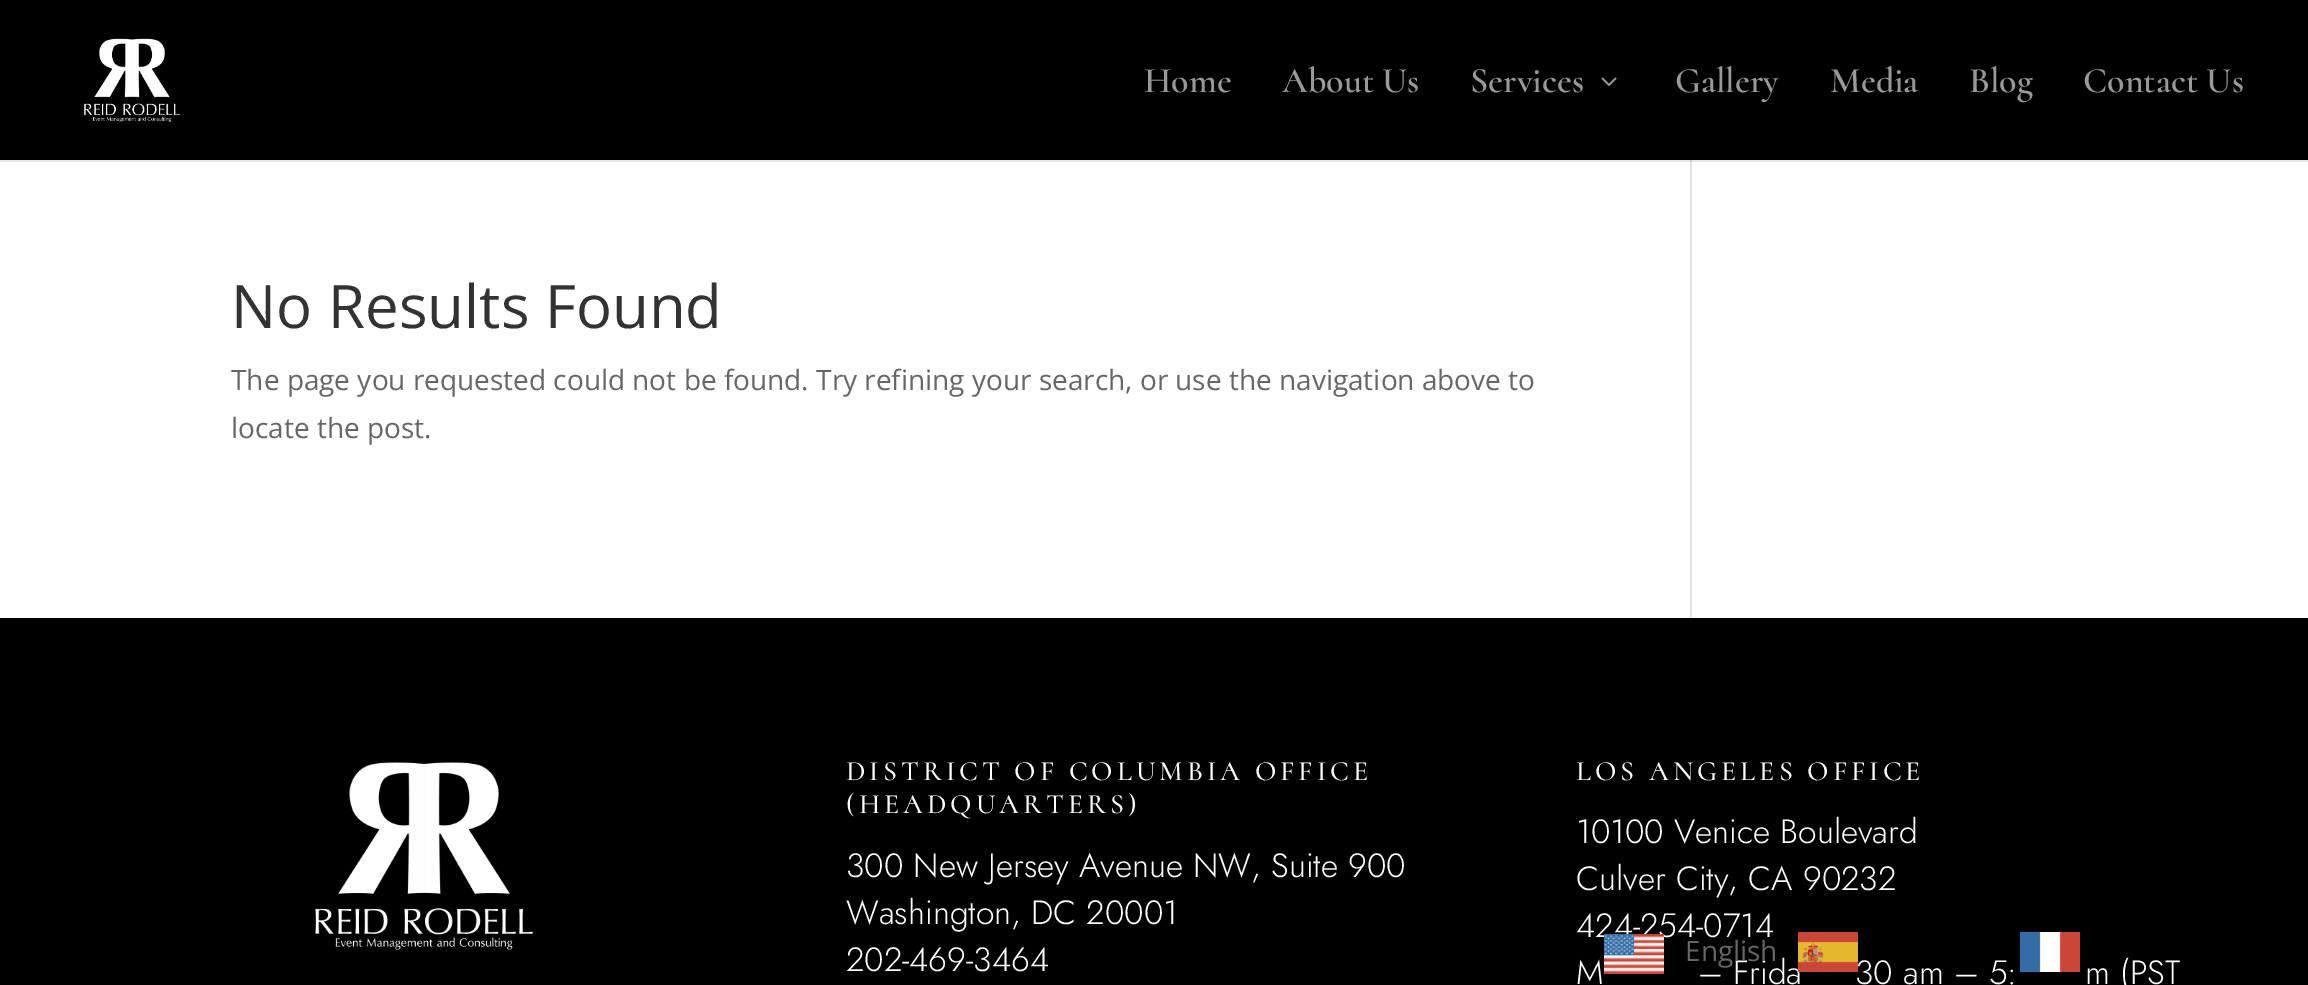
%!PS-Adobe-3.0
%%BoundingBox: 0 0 2308 985
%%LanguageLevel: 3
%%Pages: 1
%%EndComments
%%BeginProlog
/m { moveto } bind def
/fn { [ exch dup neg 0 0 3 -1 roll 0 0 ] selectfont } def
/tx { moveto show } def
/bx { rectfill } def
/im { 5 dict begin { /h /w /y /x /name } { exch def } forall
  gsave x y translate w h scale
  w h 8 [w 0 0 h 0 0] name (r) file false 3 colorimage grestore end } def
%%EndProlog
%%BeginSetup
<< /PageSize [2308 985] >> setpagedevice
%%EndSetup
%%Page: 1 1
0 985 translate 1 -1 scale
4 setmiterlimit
1 setgray
0 0 2308 985 bx
0.902 setgray
0 160 2308 2 bx
0 setgray
0 0 2308 160 bx
(image0.raw) 83 38 98 84 im
/Cormorant-SemiBold 36 fn
0.6 setgray
(Home) 1144 92 tx
(About Us) 1282 92 tx
(Services) 1470 92 tx
(image1.raw) 1601 77 16 9 im
(Gallery) 1675 92 tx
(Media) 1830 92 tx
(Blog) 1969 92 tx
(Contact Us) 2083 92 tx
/OpenSans-Regular 60 fn
0.2 setgray
(No Results Found) 231 328 tx
/OpenSans-Regular 28 fn
0.4 setgray
(The page you requested could not be found. Try refining your search, or use the navigation above to) 231 390 tx
(locate the post.) 231 438 tx
0.886 setgray
1690 160 2 458 bx
0.796 setgray
1690 160 2 2 bx
0 setgray
0 618 2308 367 bx
(image2.raw) 315 762 218 188 im
/Cormorant-Medium 28 fn
1 setgray
846 780 m 4 0 (DISTRICT OF COLUMBIA OFFICE) ashow
846 813 m 4 0 (\(HEADQUARTERS\)) ashow
/Jost-Light 33.6 fn
(300 New Jersey Avenue NW, Suite 900) 846 877 tx
(Washington, DC 20001) 846 924 tx
(202-469-3464) 846 971 tx
/Cormorant-Medium 28 fn
1576 780 m 4 0 (LOS ANGELES OFFICE) ashow
/Jost-Light 33.6 fn
(10100 Venice Boulevard) 1576 843 tx
(Culver City, CA 90232) 1576 890 tx
(424-254-0714) 1576 937 tx
(M) 1576 984 tx
(– Frida) 1698 984 tx
(30 am – 5:) 1855 984 tx
(m \(PST) 2085 984 tx
(image3.raw) 1604 934 60 40 im
/OpenSans-Regular 28 fn
0.4 setgray
(English) 1685 961 tx
(image4.raw) 1798 932 60 40 im
(image5.raw) 2020 932 60 40 im
showpage
%%EOF
